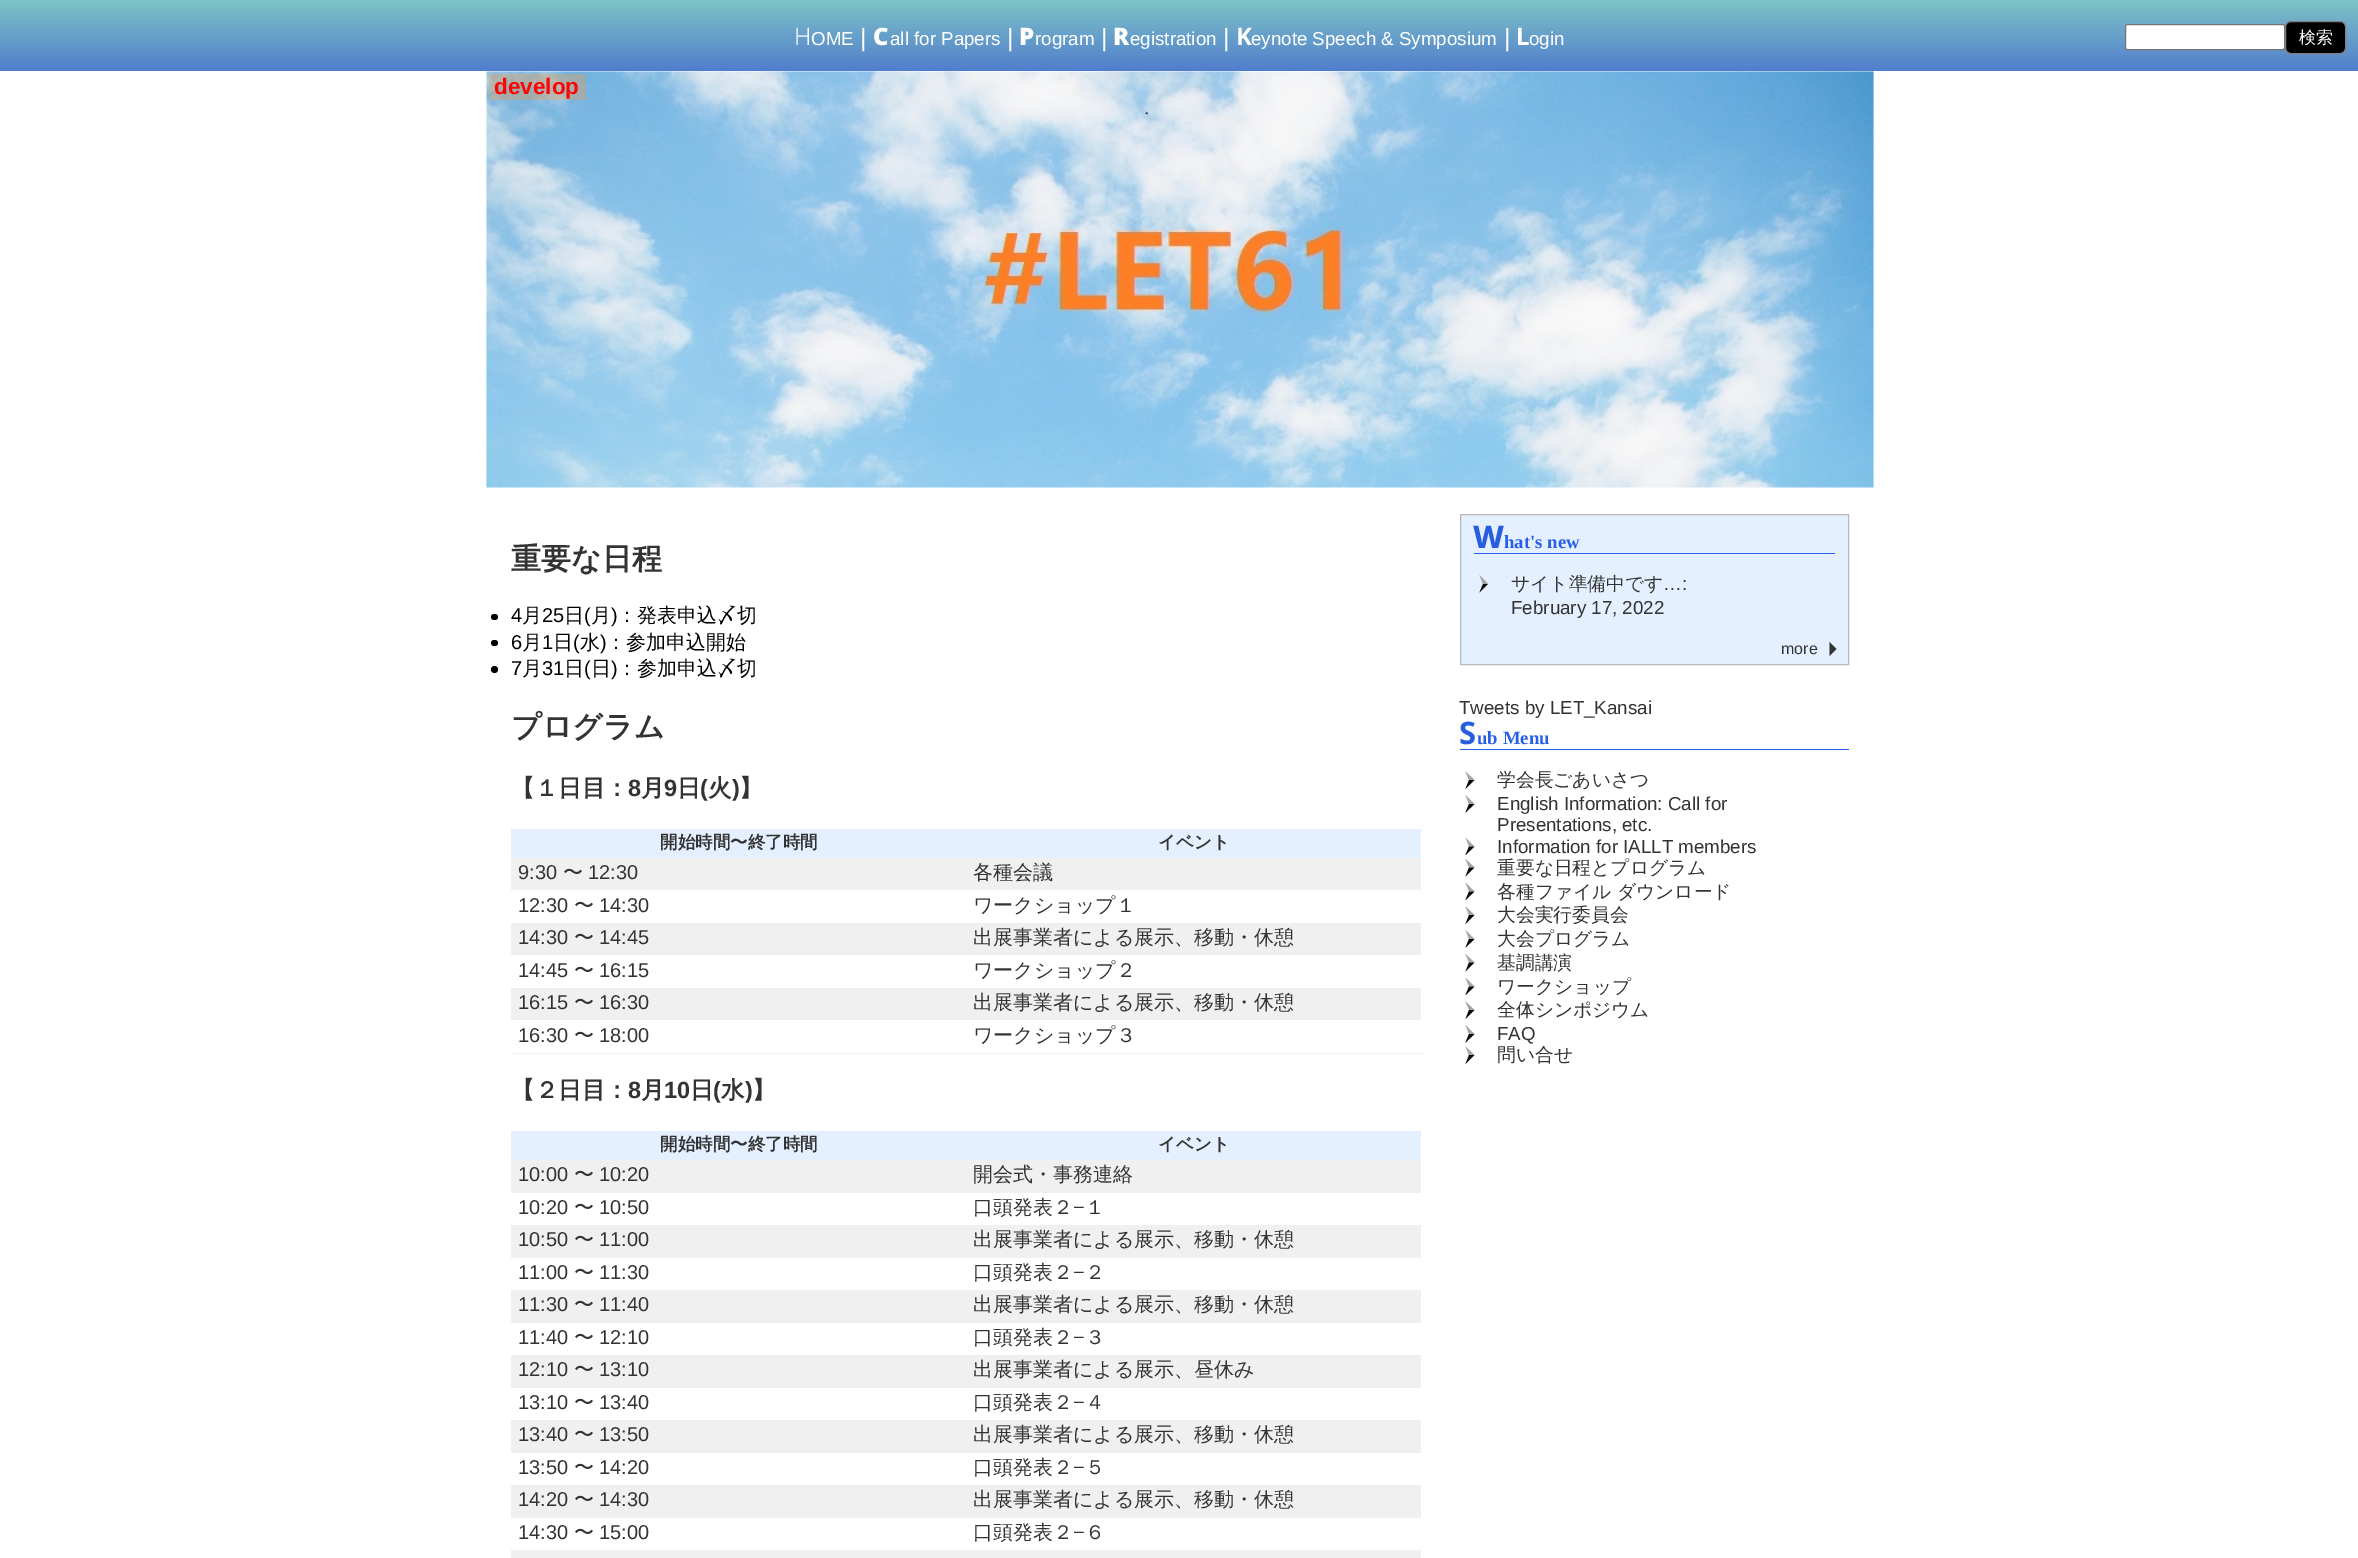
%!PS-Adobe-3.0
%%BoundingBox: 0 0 2358 1558
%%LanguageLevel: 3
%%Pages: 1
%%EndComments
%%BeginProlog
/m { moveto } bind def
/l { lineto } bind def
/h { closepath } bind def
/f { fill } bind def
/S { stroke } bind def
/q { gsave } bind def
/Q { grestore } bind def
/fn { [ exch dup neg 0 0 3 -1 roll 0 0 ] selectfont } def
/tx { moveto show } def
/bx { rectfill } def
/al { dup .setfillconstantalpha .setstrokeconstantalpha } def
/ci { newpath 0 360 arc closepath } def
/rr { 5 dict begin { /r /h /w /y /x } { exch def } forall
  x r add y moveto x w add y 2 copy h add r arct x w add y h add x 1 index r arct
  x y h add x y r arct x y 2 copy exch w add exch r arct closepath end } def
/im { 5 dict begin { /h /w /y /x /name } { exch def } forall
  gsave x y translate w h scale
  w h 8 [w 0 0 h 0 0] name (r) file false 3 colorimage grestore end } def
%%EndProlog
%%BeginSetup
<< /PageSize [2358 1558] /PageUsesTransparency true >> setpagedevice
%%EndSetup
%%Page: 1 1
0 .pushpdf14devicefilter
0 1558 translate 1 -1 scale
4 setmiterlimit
1 setgray
0 0 2358 1558 bx
q 0 0 m 2358 0 l 2358 71 l 0 71 l h clip newpath
<< /ShadingType 2 /ColorSpace /DeviceRGB /Coords [1179 0 1179 71] /Extend [true true] /Function << /FunctionType 2 /Domain [0 1] /C0 [0.49 0.765 0.776] /C1 [0.318 0.49 0.804] /N 1 >> >> shfill Q
/NotoSans-Light 24 fn
(H) 794 45 tx
/LiberationSans-Regular 18.75 fn
(OME) 811 45 tx
/LiberationSans-Regular 25 fn
(|) 860 46 tx
/NotoSans-Black 24 fn
(C) 873 45 tx
/LiberationSans-Regular 18.75 fn
(all for Papers) 890 45 tx
/LiberationSans-Regular 25 fn
(|) 1007 46 tx
/NotoSans-Black 24 fn
(P) 1019 45 tx
/LiberationSans-Regular 18.75 fn
(rogram) 1035 45 tx
/LiberationSans-Regular 25 fn
(|) 1101 46 tx
/NotoSans-Black 24 fn
(R) 1113 45 tx
/LiberationSans-Regular 18.75 fn
(egistration) 1130 45 tx
/LiberationSans-Regular 25 fn
(|) 1223 46 tx
/NotoSans-Bold 24 fn
(K) 1236 45 tx
/LiberationSans-Regular 18.75 fn
(eynote Speech & Symposium) 1251 45 tx
/LiberationSans-Regular 25 fn
(|) 1504 46 tx
/NotoSans-Bold 24 fn
(L) 1516 45 tx
/LiberationSans-Regular 18.75 fn
(ogin) 1529 45 tx
2125.5 24.5 159 25 2 rr q f Q
0.463 setgray
S
0 setgray
2285.5 21.5 60 32 5.5 rr q f Q
0.502 setgray
S
/WenQuanYiZenHei-Medium 17 fn
1 setgray
(検索) 2299 43 tx
(image0.raw) 486 71 1388 417 im
0.3 al
1 0.6 0.2 setrgbcolor
489 74 97 26 bx
/LiberationSans-Bold 22.5 fn
1 al
0.976 0.024 0.024 setrgbcolor
(develop) 494 94 tx
/WenQuanYiZenHei-Bold 30 fn
0.2 setgray
(重要な日程) 511 569 tx
0 setgray
491 614 7 6 3 rr f
/LiberationSans-Regular 20 fn
(4) 511 622 tx
/WenQuanYiZenHei-Medium 20 fn
(月) 522 622 tx
/LiberationSans-Regular 20 fn
(25) 542 622 tx
/WenQuanYiZenHei-Medium 20 fn
(日) 564 622 tx
/LiberationSans-Regular 20 fn
(\() 584 622 tx
/WenQuanYiZenHei-Medium 20 fn
(月) 591 622 tx
/LiberationSans-Regular 20 fn
(\)) 611 622 tx
/WenQuanYiZenHei-Medium 20 fn
(：発表申込〆切) 617 622 tx
491 640 7 6 3 rr f
/LiberationSans-Regular 20 fn
(6) 511 649 tx
/WenQuanYiZenHei-Medium 20 fn
(月) 522 649 tx
/LiberationSans-Regular 20 fn
(1) 542 649 tx
/WenQuanYiZenHei-Medium 20 fn
(日) 553 649 tx
/LiberationSans-Regular 20 fn
(\() 573 649 tx
/WenQuanYiZenHei-Medium 20 fn
(水) 580 649 tx
/LiberationSans-Regular 20 fn
(\)) 600 649 tx
/WenQuanYiZenHei-Medium 20 fn
(：参加申込開始) 606 649 tx
494.5 669.5 3.5 ci f
/LiberationSans-Regular 20 fn
(7) 511 675 tx
/WenQuanYiZenHei-Medium 20 fn
(月) 522 675 tx
/LiberationSans-Regular 20 fn
(31) 542 675 tx
/WenQuanYiZenHei-Medium 20 fn
(日) 564 675 tx
/LiberationSans-Regular 20 fn
(\() 584 675 tx
/WenQuanYiZenHei-Medium 20 fn
(日) 591 675 tx
/LiberationSans-Regular 20 fn
(\)) 611 675 tx
/WenQuanYiZenHei-Medium 20 fn
(：参加申込〆切) 617 675 tx
/WenQuanYiZenHei-Bold 30 fn
0.2 setgray
(プログラム) 511 737 tx
/WenQuanYiZenHei-Bold 23.5 fn
(【１日目：) 511 796 tx
/LiberationSans-Bold 23.5 fn
(8) 628 796 tx
/WenQuanYiZenHei-Bold 23.5 fn
(月) 641 796 tx
/LiberationSans-Bold 23.5 fn
(9) 664 796 tx
/WenQuanYiZenHei-Bold 23.5 fn
(日) 677 796 tx
/LiberationSans-Bold 23.5 fn
(\() 700 796 tx
/WenQuanYiZenHei-Bold 23.5 fn
(火) 708 796 tx
/LiberationSans-Bold 23.5 fn
(\)) 732 796 tx
/WenQuanYiZenHei-Bold 23.5 fn
(】) 739 796 tx
0.941 setgray
511 1053 912 1 bx
0.894 0.941 1 setrgbcolor
511 829 910 29 bx
/WenQuanYiZenHei-Bold 17.5 fn
0.2 setgray
(開始時間〜終了時間) 660 848 tx
(イベント) 1158 848 tx
0.941 setgray
511 858 910 32 bx
/LiberationSans-Regular 20 fn
0.2 setgray
(9:30) 518 879 tx
/WenQuanYiZenHei-Medium 20 fn
(〜) 563 879 tx
/LiberationSans-Regular 20 fn
(12:30) 588 879 tx
/WenQuanYiZenHei-Medium 20 fn
(各種会議) 973 879 tx
/LiberationSans-Regular 20 fn
(12:30) 518 912 tx
/WenQuanYiZenHei-Medium 20 fn
(〜) 574 912 tx
/LiberationSans-Regular 20 fn
(14:30) 599 912 tx
/WenQuanYiZenHei-Medium 20 fn
(ワークショップ１) 973 912 tx
0.941 setgray
511 923 910 32 bx
/LiberationSans-Regular 20 fn
0.2 setgray
(14:30) 518 944 tx
/WenQuanYiZenHei-Medium 20 fn
(〜) 574 944 tx
/LiberationSans-Regular 20 fn
(14:45) 599 944 tx
/WenQuanYiZenHei-Medium 20 fn
(出展事業者による展示、移動・休憩) 973 944 tx
/LiberationSans-Regular 20 fn
(14:45) 518 977 tx
/WenQuanYiZenHei-Medium 20 fn
(〜) 574 977 tx
/LiberationSans-Regular 20 fn
(16:15) 599 977 tx
/WenQuanYiZenHei-Medium 20 fn
(ワークショップ２) 973 977 tx
0.941 setgray
511 988 910 32 bx
/LiberationSans-Regular 20 fn
0.2 setgray
(16:15) 518 1009 tx
/WenQuanYiZenHei-Medium 20 fn
(〜) 574 1009 tx
/LiberationSans-Regular 20 fn
(16:30) 599 1009 tx
/WenQuanYiZenHei-Medium 20 fn
(出展事業者による展示、移動・休憩) 973 1009 tx
/LiberationSans-Regular 20 fn
(16:30) 518 1042 tx
/WenQuanYiZenHei-Medium 20 fn
(〜) 574 1042 tx
/LiberationSans-Regular 20 fn
(18:00) 599 1042 tx
/WenQuanYiZenHei-Medium 20 fn
(ワークショップ３) 973 1042 tx
/WenQuanYiZenHei-Bold 23.5 fn
(【２日目：) 511 1098 tx
/LiberationSans-Bold 23.5 fn
(8) 628 1098 tx
/WenQuanYiZenHei-Bold 23.5 fn
(月) 641 1098 tx
/LiberationSans-Bold 23.5 fn
(10) 664 1098 tx
/WenQuanYiZenHei-Bold 23.5 fn
(日) 690 1098 tx
/LiberationSans-Bold 23.5 fn
(\() 713 1098 tx
/WenQuanYiZenHei-Bold 23.5 fn
(水) 721 1098 tx
/LiberationSans-Bold 23.5 fn
(\)) 745 1098 tx
/WenQuanYiZenHei-Bold 23.5 fn
(】) 752 1098 tx
0.894 0.941 1 setrgbcolor
511 1131 910 29 bx
/WenQuanYiZenHei-Bold 17.5 fn
0.2 setgray
(開始時間〜終了時間) 660 1150 tx
(イベント) 1158 1150 tx
0.941 setgray
511 1160 910 33 bx
/LiberationSans-Regular 20 fn
0.2 setgray
(10:00) 518 1181 tx
/WenQuanYiZenHei-Medium 20 fn
(〜) 574 1181 tx
/LiberationSans-Regular 20 fn
(10:20) 599 1181 tx
/WenQuanYiZenHei-Medium 20 fn
(開会式・事務連絡) 973 1181 tx
/LiberationSans-Regular 20 fn
(10:20) 518 1214 tx
/WenQuanYiZenHei-Medium 20 fn
(〜) 574 1214 tx
/LiberationSans-Regular 20 fn
(10:50) 599 1214 tx
/WenQuanYiZenHei-Medium 20 fn
(口頭発表２) 973 1214 tx
/LiberationSans-Regular 20 fn
(−) 1073 1214 tx
/WenQuanYiZenHei-Medium 20 fn
(１) 1085 1214 tx
0.941 setgray
511 1225 910 33 bx
/LiberationSans-Regular 20 fn
0.2 setgray
(10:50) 518 1246 tx
/WenQuanYiZenHei-Medium 20 fn
(〜) 574 1246 tx
/LiberationSans-Regular 20 fn
(11:00) 599 1246 tx
/WenQuanYiZenHei-Medium 20 fn
(出展事業者による展示、移動・休憩) 973 1246 tx
/LiberationSans-Regular 20 fn
(11:00) 518 1279 tx
/WenQuanYiZenHei-Medium 20 fn
(〜) 574 1279 tx
/LiberationSans-Regular 20 fn
(11:30) 599 1279 tx
/WenQuanYiZenHei-Medium 20 fn
(口頭発表２) 973 1279 tx
/LiberationSans-Regular 20 fn
(−) 1073 1279 tx
/WenQuanYiZenHei-Medium 20 fn
(２) 1085 1279 tx
0.941 setgray
511 1290 910 33 bx
/LiberationSans-Regular 20 fn
0.2 setgray
(11:30) 518 1311 tx
/WenQuanYiZenHei-Medium 20 fn
(〜) 574 1311 tx
/LiberationSans-Regular 20 fn
(11:40) 599 1311 tx
/WenQuanYiZenHei-Medium 20 fn
(出展事業者による展示、移動・休憩) 973 1311 tx
/LiberationSans-Regular 20 fn
(11:40) 518 1344 tx
/WenQuanYiZenHei-Medium 20 fn
(〜) 574 1344 tx
/LiberationSans-Regular 20 fn
(12:10) 599 1344 tx
/WenQuanYiZenHei-Medium 20 fn
(口頭発表２) 973 1344 tx
/LiberationSans-Regular 20 fn
(−) 1073 1344 tx
/WenQuanYiZenHei-Medium 20 fn
(３) 1085 1344 tx
0.941 setgray
511 1355 910 33 bx
/LiberationSans-Regular 20 fn
0.2 setgray
(12:10) 518 1376 tx
/WenQuanYiZenHei-Medium 20 fn
(〜) 574 1376 tx
/LiberationSans-Regular 20 fn
(13:10) 599 1376 tx
/WenQuanYiZenHei-Medium 20 fn
(出展事業者による展示、昼休み) 973 1376 tx
/LiberationSans-Regular 20 fn
(13:10) 518 1409 tx
/WenQuanYiZenHei-Medium 20 fn
(〜) 574 1409 tx
/LiberationSans-Regular 20 fn
(13:40) 599 1409 tx
/WenQuanYiZenHei-Medium 20 fn
(口頭発表２) 973 1409 tx
/LiberationSans-Regular 20 fn
(−) 1073 1409 tx
/WenQuanYiZenHei-Medium 20 fn
(４) 1085 1409 tx
0.941 setgray
511 1420 910 33 bx
/LiberationSans-Regular 20 fn
0.2 setgray
(13:40) 518 1441 tx
/WenQuanYiZenHei-Medium 20 fn
(〜) 574 1441 tx
/LiberationSans-Regular 20 fn
(13:50) 599 1441 tx
/WenQuanYiZenHei-Medium 20 fn
(出展事業者による展示、移動・休憩) 973 1441 tx
/LiberationSans-Regular 20 fn
(13:50) 518 1474 tx
/WenQuanYiZenHei-Medium 20 fn
(〜) 574 1474 tx
/LiberationSans-Regular 20 fn
(14:20) 599 1474 tx
/WenQuanYiZenHei-Medium 20 fn
(口頭発表２) 973 1474 tx
/LiberationSans-Regular 20 fn
(−) 1073 1474 tx
/WenQuanYiZenHei-Medium 20 fn
(５) 1085 1474 tx
0.941 setgray
511 1485 910 33 bx
/LiberationSans-Regular 20 fn
0.2 setgray
(14:20) 518 1506 tx
/WenQuanYiZenHei-Medium 20 fn
(〜) 574 1506 tx
/LiberationSans-Regular 20 fn
(14:30) 599 1506 tx
/WenQuanYiZenHei-Medium 20 fn
(出展事業者による展示、移動・休憩) 973 1506 tx
/LiberationSans-Regular 20 fn
(14:30) 518 1539 tx
/WenQuanYiZenHei-Medium 20 fn
(〜) 574 1539 tx
/LiberationSans-Regular 20 fn
(15:00) 599 1539 tx
/WenQuanYiZenHei-Medium 20 fn
(口頭発表２) 973 1539 tx
/LiberationSans-Regular 20 fn
(−) 1073 1539 tx
/WenQuanYiZenHei-Medium 20 fn
(６) 1085 1539 tx
0.941 setgray
511 1550 910 8 bx
0.894 0.941 1 setrgbcolor
1460.5 514.5 m 1848.5 514.5 l 1848.5 664.5 l 1460.5 664.5 l h q f Q
0.725 setgray
S
0.153 0.369 0.918 setrgbcolor
1474 553 361 1 bx
/NotoSans-ExtraBold 31 fn
0.153 0.369 0.878 setrgbcolor
(W) 1473 548 tx
/LiberationSerif-Bold 18.75 fn
0.153 0.369 0.918 setrgbcolor
(hat's new) 1504 548 tx
0.647 setgray
1479.5 575 m 1488 584 l 1483 584 l h f
0.047 setgray
1488 584 m 1479.5 592.5 l 1483 584 l h f
/WenQuanYiZenHei-Medium 18.75 fn
0.2 setgray
(サイト準備中です) 1511 590 tx
/LiberationSans-Regular 18.75 fn
(…:) 1663 590 tx
(February 17, 2022) 1511 614 tx
/LiberationSans-Regular 16 fn
(more) 1781 654 tx
1829.5 642 m 1836.5 649 l 1829.5 649 l h 1836.5 649 m 1829.5 656 l 1829.5 649 l h f
/LiberationSans-Regular 18.75 fn
(Tweets by LET_Kansai) 1459 714 tx
0.153 0.369 0.918 setrgbcolor
1460 749 389 1 bx
/NotoSans-Bold 31 fn
0.153 0.369 0.878 setrgbcolor
(S) 1459 744 tx
/LiberationSerif-Bold 18.75 fn
0.153 0.369 0.918 setrgbcolor
(ub Menu) 1477 744 tx
0.647 setgray
1465.5 771.5 m 1474.5 780 l 1469 780 l h f
0.047 setgray
1474.5 780 m 1465.5 789 l 1469 780 l h f
/WenQuanYiZenHei-Medium 18.75 fn
0.2 setgray
(学会長ごあいさつ) 1497 786 tx
0.647 setgray
1465.5 795 m 1474.5 804 l 1469 804 l h f
0.047 setgray
1474.5 804 m 1465.5 812.5 l 1469 804 l h f
/LiberationSans-Regular 18.75 fn
0.2 setgray
(English Information: Call for) 1497 810 tx
(Presentations, etc.) 1497 831 tx
0.647 setgray
1465.5 837.5 m 1474.5 846.5 l 1469 846.5 l h f
0.047 setgray
1474.5 846.5 m 1465.5 855 l 1469 846.5 l h f
0.2 setgray
(Information for IALLT members) 1497 853 tx
0.647 setgray
1465.5 859 m 1474.5 867.5 l 1469 867.5 l h f
0.047 setgray
1474.5 867.5 m 1465.5 876.5 l 1469 867.5 l h f
/WenQuanYiZenHei-Medium 18.75 fn
0.2 setgray
(重要な日程とプログラム) 1497 874 tx
0.647 setgray
1465.5 882.5 m 1474.5 891.5 l 1469 891.5 l h f
0.047 setgray
1474.5 891.5 m 1465.5 900 l 1469 891.5 l h f
0.2 setgray
(各種ファイル ダウンロード) 1497 898 tx
0.647 setgray
1465.5 906.5 m 1474.5 915 l 1469 915 l h f
0.047 setgray
1474.5 915 m 1465.5 924 l 1469 915 l h f
0.2 setgray
(大会実行委員会) 1497 921 tx
0.647 setgray
1465.5 930 m 1474.5 939 l 1469 939 l h f
0.047 setgray
1474.5 939 m 1465.5 947.5 l 1469 939 l h f
0.2 setgray
(大会プログラム) 1497 945 tx
0.647 setgray
1465.5 954 m 1474.5 962.5 l 1469 962.5 l h f
0.047 setgray
1474.5 962.5 m 1465.5 971.5 l 1469 962.5 l h f
0.2 setgray
(基調講演) 1497 969 tx
0.647 setgray
1465.5 977.5 m 1474.5 986.5 l 1469 986.5 l h f
0.047 setgray
1474.5 986.5 m 1465.5 995 l 1469 986.5 l h f
0.2 setgray
(ワークショップ) 1497 993 tx
0.647 setgray
1465.5 1001.5 m 1474.5 1010 l 1469 1010 l h f
0.047 setgray
1474.5 1010 m 1465.5 1019 l 1469 1010 l h f
0.2 setgray
(全体シンポジウム) 1497 1016 tx
0.647 setgray
1465.5 1025 m 1474.5 1034 l 1469 1034 l h f
0.047 setgray
1474.5 1034 m 1465.5 1042.5 l 1469 1034 l h f
/LiberationSans-Regular 18.75 fn
0.2 setgray
(FAQ) 1497 1040 tx
0.647 setgray
1465.5 1046.5 m 1474.5 1055 l 1469 1055 l h f
0.047 setgray
1474.5 1055 m 1465.5 1064 l 1469 1055 l h f
/WenQuanYiZenHei-Medium 18.75 fn
0.2 setgray
(問い合せ) 1497 1061 tx
.poppdf14devicefilter showpage
%%EOF
